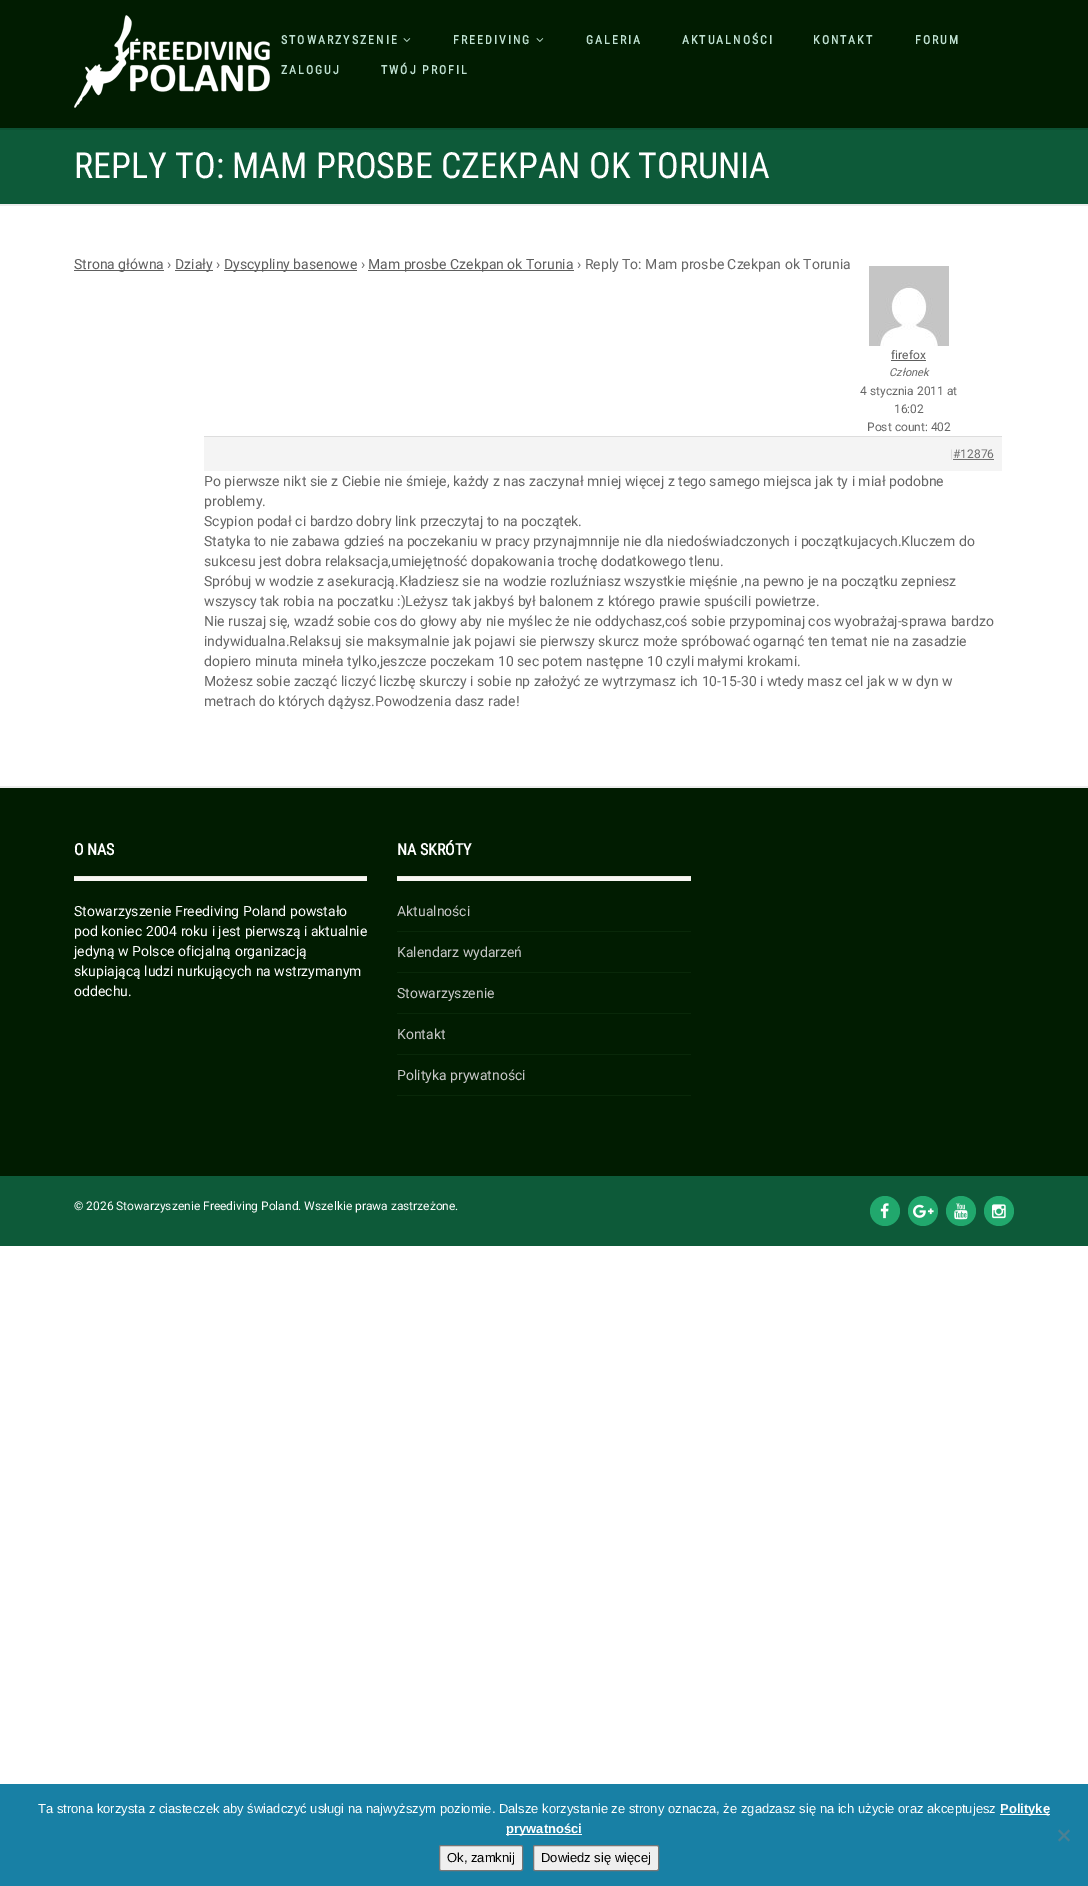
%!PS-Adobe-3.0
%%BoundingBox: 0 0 1088 1886
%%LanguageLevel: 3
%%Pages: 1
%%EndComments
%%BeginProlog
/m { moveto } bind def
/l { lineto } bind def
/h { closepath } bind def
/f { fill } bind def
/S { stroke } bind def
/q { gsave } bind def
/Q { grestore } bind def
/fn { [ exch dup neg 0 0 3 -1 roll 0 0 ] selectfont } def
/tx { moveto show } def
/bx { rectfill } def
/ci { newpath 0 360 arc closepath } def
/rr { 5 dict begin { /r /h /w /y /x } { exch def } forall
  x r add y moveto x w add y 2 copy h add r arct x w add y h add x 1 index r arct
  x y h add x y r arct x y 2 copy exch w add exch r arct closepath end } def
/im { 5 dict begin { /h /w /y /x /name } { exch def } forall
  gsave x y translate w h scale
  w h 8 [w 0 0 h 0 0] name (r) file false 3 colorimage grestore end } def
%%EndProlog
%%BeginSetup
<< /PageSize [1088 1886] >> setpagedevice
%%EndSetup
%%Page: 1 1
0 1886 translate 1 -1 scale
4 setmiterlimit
1 setgray
0 0 1088 1886 bx
0.047 0.318 0.2 setrgbcolor
0 128 1088 2 bx
0.004 0.11 0.004 setrgbcolor
0 0 1088 128 bx
(image0.raw) 74 15 196 93 im
/RobotoCondensed-Bold 12 fn
0.753 0.886 0.827 setrgbcolor
281 44 m 2 0 (STOWARZYSZENIE) ashow
(image1.raw) 403 38 8 4 im
453 44 m 2 0 (FREEDIVING) ashow
(image1.raw) 536 38 8 4 im
586 44 m 2 0 (GALERIA) ashow
682 44 m 2 0 (AKTUALNOŚCI) ashow
813 44 m 2 0 (KONTAKT) ashow
915 44 m 2 0 (FORUM) ashow
281 74 m 2 0 (ZALOGUJ) ashow
381 74 m 2 0 (TWÓJ PROFIL) ashow
0.929 setgray
0 204 1088 2 bx
0.051 0.353 0.224 setrgbcolor
0 130 1088 74 bx
/RobotoCondensed-Regular 36 fn
1 setgray
(REPLY TO: MAM PROSBE CZEKPAN OK TORUNIA) 74 178 tx
0.369 setgray
74 270 90 1 bx
/Roboto-Regular 14 fn
(Strona główna) 74 269 tx
0.4 setgray
(›) 167 269 tx
0.369 setgray
175 270 38 1 bx
(Działy) 175 269 tx
0.4 setgray
(›) 216 269 tx
0.369 setgray
224 270 133 1 bx
(Dyscypliny basenowe) 224 269 tx
0.4 setgray
(›) 361 269 tx
0.369 setgray
368 270 206 1 bx
(Mam prosbe Czekpan ok Torunia) 368 269 tx
0.4 setgray
(› Reply To: Mam prosbe Czekpan ok Torunia) 577 269 tx
(image2.raw) 869 266 80 80 im
/Roboto-Regular 12 fn
0.369 setgray
(firefox) 891 359 tx
891 360 35 1 bx
/Roboto-Italic 11 fn
0.4 setgray
(Członek) 889 376 tx
/Roboto-Regular 12 fn
(4 stycznia 2011 at) 860 395 tx
(16:02) 894 413 tx
(Post count: 402) 867 431 tx
0.957 setgray
204 437 798 34 bx
0.867 setgray
204 436 798 1 bx
(|) 950 458 tx
0.439 setgray
(#12876) 953 458 tx
953 459 41 1 bx
/Roboto-Regular 14 fn
0.4 setgray
(Po pierwsze nikt sie z Ciebie nie śmieje, każdy z nas zaczynał mniej więcej z tego samego miejsca jak ty i miał podobne) 204 486 tx
(problemy.) 204 506 tx
(Scypion podał ci bardzo dobry link przeczytaj to na początek.) 204 526 tx
(Statyka to nie zabawa gdzieś na poczekaniu w pracy przynajmnnije nie dla niedoświadczonych i początkujacych.Kluczem do) 204 546 tx
(sukcesu jest dobra relaksacja,umiejętność dopakowania trochę dodatkowego tlenu.) 204 566 tx
(Spróbuj w wodzie z asekuracją.Kładziesz sie na wodzie rozluźniasz wszystkie mięśnie ,na pewno je na początku zepniesz) 204 586 tx
(wszyscy tak robia na poczatku :\)Leżysz tak jakbyś był balonem z którego prawie spuścili powietrze.) 204 606 tx
(Nie ruszaj się, wzadź sobie cos do głowy aby nie myślec że nie oddychasz,coś sobie przypominaj cos wyobrażaj-sprawa bardzo) 204 626 tx
(indywidualna.Relaksuj sie maksymalnie jak pojawi sie pierwszy skurcz może spróbować ogarnąć ten temat nie na zasadzie) 204 646 tx
(dopiero minuta mineła tylko,jeszcze poczekam 10 sec potem następne 10 czyli małymi krokami.) 204 666 tx
(Możesz sobie zacząć liczyć liczbę skurczy i sobie np założyć ze wytrzymasz ich 10-15-30 i wtedy masz cel jak w w dyn w) 204 686 tx
(metrach do których dążysz.Powodzenia dasz rade!) 204 706 tx
0.929 setgray
0 786 1088 2 bx
0.004 0.11 0.004 setrgbcolor
0 788 1088 388 bx
0.973 0.969 0.953 setrgbcolor
74 877 293 4 bx
/RobotoCondensed-Bold 16 fn
1 setgray
(O NAS) 74 855 tx
0.925 0.918 0.894 setrgbcolor
74 876 293 1 bx
/Roboto-Regular 14 fn
1 setgray
(Stowarzyszenie Freediving Poland powstało) 74 916 tx
(pod koniec 2004 roku i jest pierwszą i aktualnie) 74 936 tx
(jedyną w Polsce oficjalną organizacją) 74 956 tx
(skupiającą ludzi nurkujących na wstrzymanym) 74 976 tx
(oddechu.) 74 996 tx
0.973 0.969 0.953 setrgbcolor
397 877 294 4 bx
/RobotoCondensed-Bold 16 fn
1 setgray
(NA SKRÓTY) 397 855 tx
0.925 0.918 0.894 setrgbcolor
397 876 294 1 bx
0.035 0.157 0.035 setrgbcolor
397 931 294 1 bx
/Roboto-Regular 14 fn
0.784 setgray
(Aktualności) 397 916 tx
0.035 0.157 0.035 setrgbcolor
397 972 294 1 bx
0.784 setgray
(Kalendarz wydarzeń) 397 957 tx
0.035 0.157 0.035 setrgbcolor
397 1013 294 1 bx
0.784 setgray
(Stowarzyszenie) 397 998 tx
0.035 0.157 0.035 setrgbcolor
397 1054 294 1 bx
0.784 setgray
(Kontakt) 397 1039 tx
0.035 0.157 0.035 setrgbcolor
397 1095 294 1 bx
0.784 setgray
(Polityka prywatności) 397 1080 tx
0.051 0.353 0.224 setrgbcolor
0 1176 1088 70 bx
/Roboto-Regular 12 fn
1 setgray
(© 2026 Stowarzyszenie Freediving Poland. Wszelkie prawa zastrzeżone.) 74 1210 tx
0.129 0.659 0.427 setrgbcolor
885 1211 15 ci f
(image3.raw) 880 1203 9 16 im
923 1211 15 ci f
(image4.raw) 913 1204 21 14 im
961 1211 15 ci f
(image5.raw) 954 1203 14 17 im
999 1211 15 ci f
(image6.raw) 992 1204 14 15 im
0.094 0.502 0.647 setrgbcolor
0 1784 1088 102 bx
/LiberationSans-Regular 13 fn
1 setgray
(Ta strona korzysta z ciasteczek aby świadczyć usługi na najwyższym poziomie. Dalsze korzystanie ze strony oznacza, że zgadzasz się na ich użycie oraz akceptujesz) 38 1813 tx
1000 1814 50 1 bx
/LiberationSans-Bold 13 fn
(Politykę) 1000 1813 tx
506 1834 76 1 bx
(prywatności) 506 1833 tx
0.298 0.502 0.576 setrgbcolor
1068.5 1829.5 m 1070 1831 l 1059.5 1841.5 l 1058 1840 l h f
1058 1831 m 1059.5 1829.5 l 1070 1840 l 1068.5 1841.5 l h f
0.937 setgray
439.5 1845.5 83 25 1.5 rr q f Q
0.463 setgray
S
/LiberationSans-Regular 13 fn
0 setgray
(Ok, zamknij) 447 1862 tx
0.937 setgray
533.5 1845.5 125 25 1.5 rr q f Q
0.463 setgray
S
0 setgray
(Dowiedz się więcej) 541 1862 tx
showpage
%%EOF
